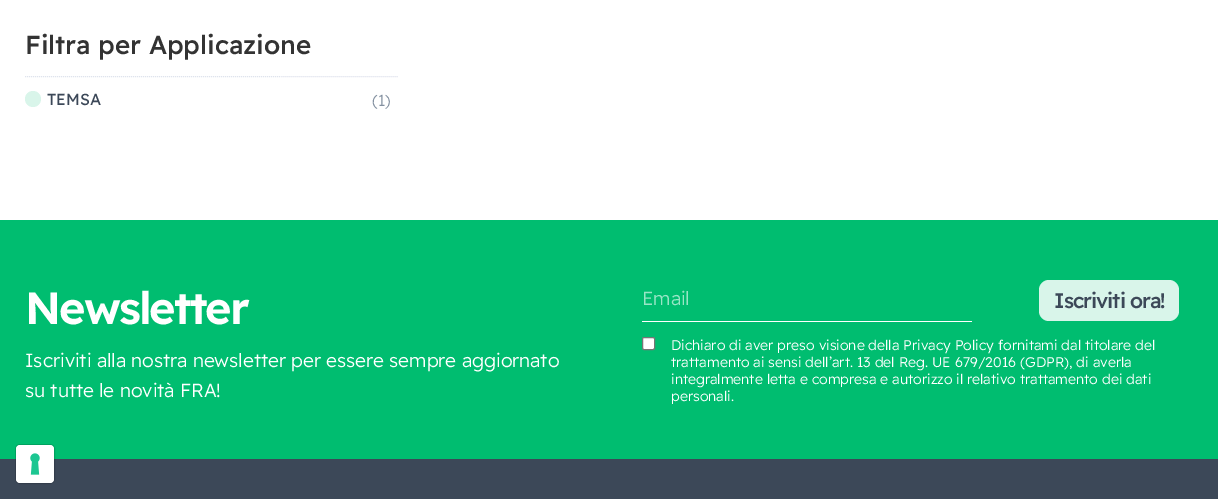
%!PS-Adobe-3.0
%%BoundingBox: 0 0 1218 499
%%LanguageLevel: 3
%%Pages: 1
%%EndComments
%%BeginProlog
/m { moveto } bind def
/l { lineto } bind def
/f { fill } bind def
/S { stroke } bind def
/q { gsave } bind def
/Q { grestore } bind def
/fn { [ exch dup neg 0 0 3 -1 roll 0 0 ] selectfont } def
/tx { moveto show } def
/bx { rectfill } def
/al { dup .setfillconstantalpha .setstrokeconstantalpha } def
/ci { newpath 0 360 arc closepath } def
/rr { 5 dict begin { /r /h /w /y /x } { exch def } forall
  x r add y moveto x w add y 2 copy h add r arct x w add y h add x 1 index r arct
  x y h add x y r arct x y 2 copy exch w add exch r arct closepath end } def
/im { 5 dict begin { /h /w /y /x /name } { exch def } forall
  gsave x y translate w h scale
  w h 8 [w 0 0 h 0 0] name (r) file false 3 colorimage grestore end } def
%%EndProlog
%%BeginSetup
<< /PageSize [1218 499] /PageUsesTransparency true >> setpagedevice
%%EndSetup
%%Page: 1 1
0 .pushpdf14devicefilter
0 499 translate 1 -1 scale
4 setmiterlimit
1 setgray
0 0 1218 499 bx
/ReadexPro-Medium 26 fn
0.2 setgray
(Filtra per Applicazione) 25 54 tx
0.875 0.89 0.929 setrgbcolor
[1 1] 0 setdash
25 76.5 m 399 76.5 l S
0.851 0.961 0.918 setrgbcolor
33 99 8 ci f
/ReadexPro-Regular 16 fn
0.235 0.282 0.345 setrgbcolor
(TEMSA) 47 105 tx
/ReadexPro-Light 16 fn
0.514 0.565 0.627 setrgbcolor
(\(1\)) 372 106 tx
0 0.741 0.439 setrgbcolor
0 220 1218 239 bx
/ReadexPro-SemiBold 45 fn
1 setgray
25 324 m -2 0 (Newsletter) ashow
/ReadexPro-Light 19 fn
(Iscriviti alla nostra newsletter per essere sempre aggiornato) 25 367 tx
(su tutte le novità FRA!) 25 397 tx
642 321 330 1 bx
0.6 0.898 0.776 setrgbcolor
(Email) 642 305 tx
0.851 0.961 0.918 setrgbcolor
1039 280 140 41 10 rr f
/ReadexPro-Medium 21 fn
0.235 0.282 0.345 setrgbcolor
1054 308 m -1 0 (Iscriviti ora!) ashow
1 setgray
642.5 337.5 12 12 1.5 rr q f Q
0.463 setgray
[] 0 setdash
S
/ReadexPro-Light 14 fn
1 setgray
(Dichiaro di aver preso visione della Privacy Policy fornitami dal titolare del) 671 350 tx
(trattamento ai sensi dell’art. 13 del Reg. UE 679/2016 \(GDPR\), di averla) 671 367 tx
(integralmente letta e compresa e autorizzo il relativo trattamento dei dati) 671 384 tx
(personali.) 671 401 tx
0.235 0.282 0.345 setrgbcolor
0 459 1218 40 bx
0.15 al
0 setgray
15.5 444.5 39 39 4.5 rr S
1 al
1 setgray
16 445 38 38 4 rr f
(image0.raw) 30 453 10 22 im
.poppdf14devicefilter showpage
%%EOF
